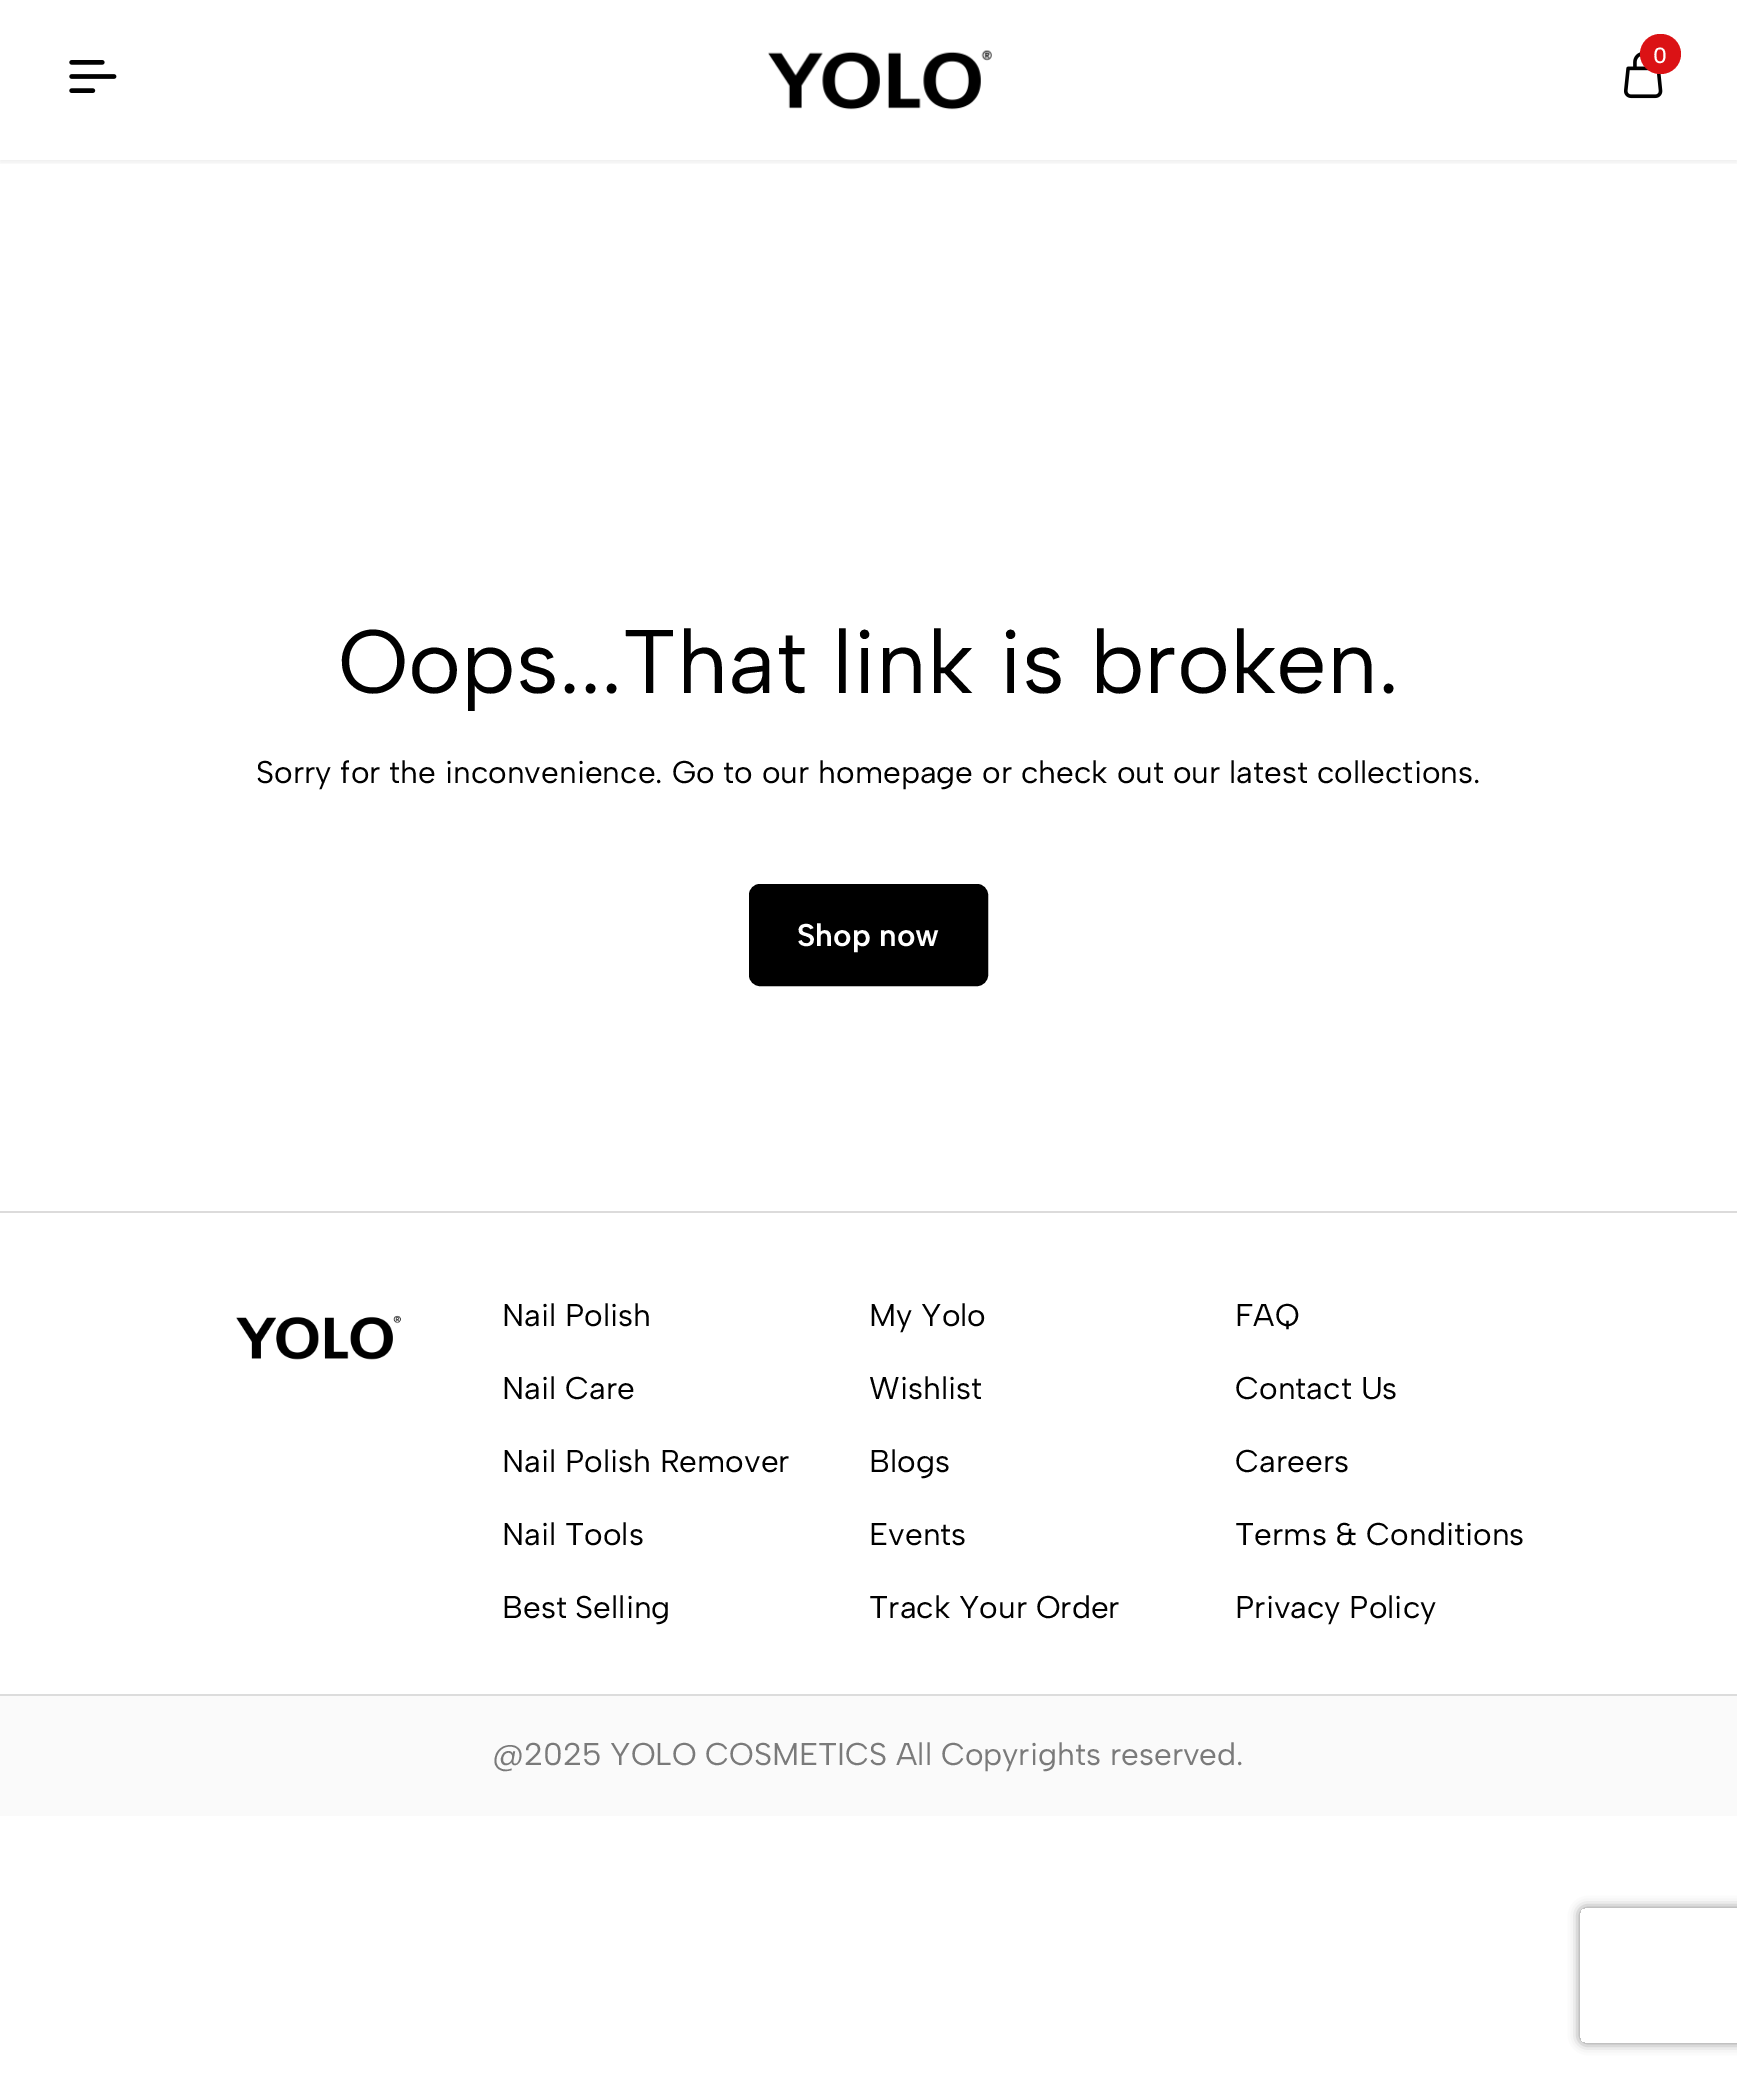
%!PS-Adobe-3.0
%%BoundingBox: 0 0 1737 2073
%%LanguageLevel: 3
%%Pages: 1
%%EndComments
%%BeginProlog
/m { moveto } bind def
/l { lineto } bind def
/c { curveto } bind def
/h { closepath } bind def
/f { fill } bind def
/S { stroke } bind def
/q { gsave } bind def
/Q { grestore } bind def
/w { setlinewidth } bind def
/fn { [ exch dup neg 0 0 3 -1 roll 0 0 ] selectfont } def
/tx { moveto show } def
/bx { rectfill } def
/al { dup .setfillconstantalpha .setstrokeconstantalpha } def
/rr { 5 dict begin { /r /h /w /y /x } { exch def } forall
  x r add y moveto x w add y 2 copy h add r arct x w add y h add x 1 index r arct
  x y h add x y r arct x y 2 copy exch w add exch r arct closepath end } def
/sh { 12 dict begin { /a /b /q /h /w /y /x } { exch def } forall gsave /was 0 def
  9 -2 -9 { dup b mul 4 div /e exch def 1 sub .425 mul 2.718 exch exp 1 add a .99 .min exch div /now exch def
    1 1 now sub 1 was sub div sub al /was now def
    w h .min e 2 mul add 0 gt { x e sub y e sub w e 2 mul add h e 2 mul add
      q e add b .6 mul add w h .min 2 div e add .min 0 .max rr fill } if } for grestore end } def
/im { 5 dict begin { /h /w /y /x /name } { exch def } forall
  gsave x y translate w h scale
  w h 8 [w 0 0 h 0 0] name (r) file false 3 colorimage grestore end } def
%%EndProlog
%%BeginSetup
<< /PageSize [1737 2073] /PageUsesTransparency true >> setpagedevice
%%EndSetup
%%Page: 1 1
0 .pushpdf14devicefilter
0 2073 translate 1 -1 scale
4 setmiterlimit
1 setgray
0 0 1737 2073 bx
q
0 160 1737 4 rectclip
0 setgray
0 2 1737 160 0 3.5 0.07 sh
Q
(image0.raw) 69 60 48 33 im
(image1.raw) 768 50 224 60 im
(image2.raw) 1624 52 39 47 im
0.859 0.071 0.082 setrgbcolor
1640 34 41 40 20 rr f
/AlbertSans-Medium 22 fn
1 setgray
(0) 1653 63 tx
/AlbertSans-Regular 90 fn
0 setgray
(Oops...That link is broken.) 338 693 tx
/AlbertSans-Regular 31.5 fn
(Sorry for the inconvenience. Go to our homepage or check out our latest collections.) 256 783 tx
750 885 237 100 10 rr q f Q
2 w
S
/AlbertSans-SemiBold 31.5 fn
1 setgray
(Shop now) 797 946 tx
0.863 0.859 0.859 setrgbcolor
0 1211 1737 2 bx
(image3.raw) 236 1315 165 45 im
/AlbertSans-Regular 31.5 fn
0 setgray
(Nail Polish) 502 1326 tx
(Nail Care) 502 1399 tx
(Nail Polish Remover) 502 1472 tx
(Nail Tools) 502 1545 tx
(Best Selling) 502 1618 tx
(My Yolo) 869 1326 tx
(Wishlist) 869 1399 tx
(Blogs) 869 1472 tx
(Events) 869 1545 tx
(Track Your Order) 869 1618 tx
(FAQ) 1235 1326 tx
(Contact Us) 1235 1399 tx
(Careers) 1235 1472 tx
(Terms & Conditions) 1235 1545 tx
(Privacy Policy) 1235 1618 tx
0.98 setgray
0 1696 1737 120 bx
0.863 setgray
0 1694 1737 2 bx
0.478 setgray
(@2025 YOLO COSMETICS All Copyrights reserved.) 493 1765 tx
q
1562 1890 m 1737 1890 l 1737 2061 l 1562 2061 l h 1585 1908 m 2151 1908 l 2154 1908 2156 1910 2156 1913 c 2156 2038 l 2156 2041 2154 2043 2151 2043 c 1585 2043 l 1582 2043 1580 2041 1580 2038 c 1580 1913 l 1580 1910 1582 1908 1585 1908 c h eoclip newpath
0.502 setgray
1580 1908 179 135 5 5.5 1 sh
Q
.poppdf14devicefilter showpage
%%EOF
